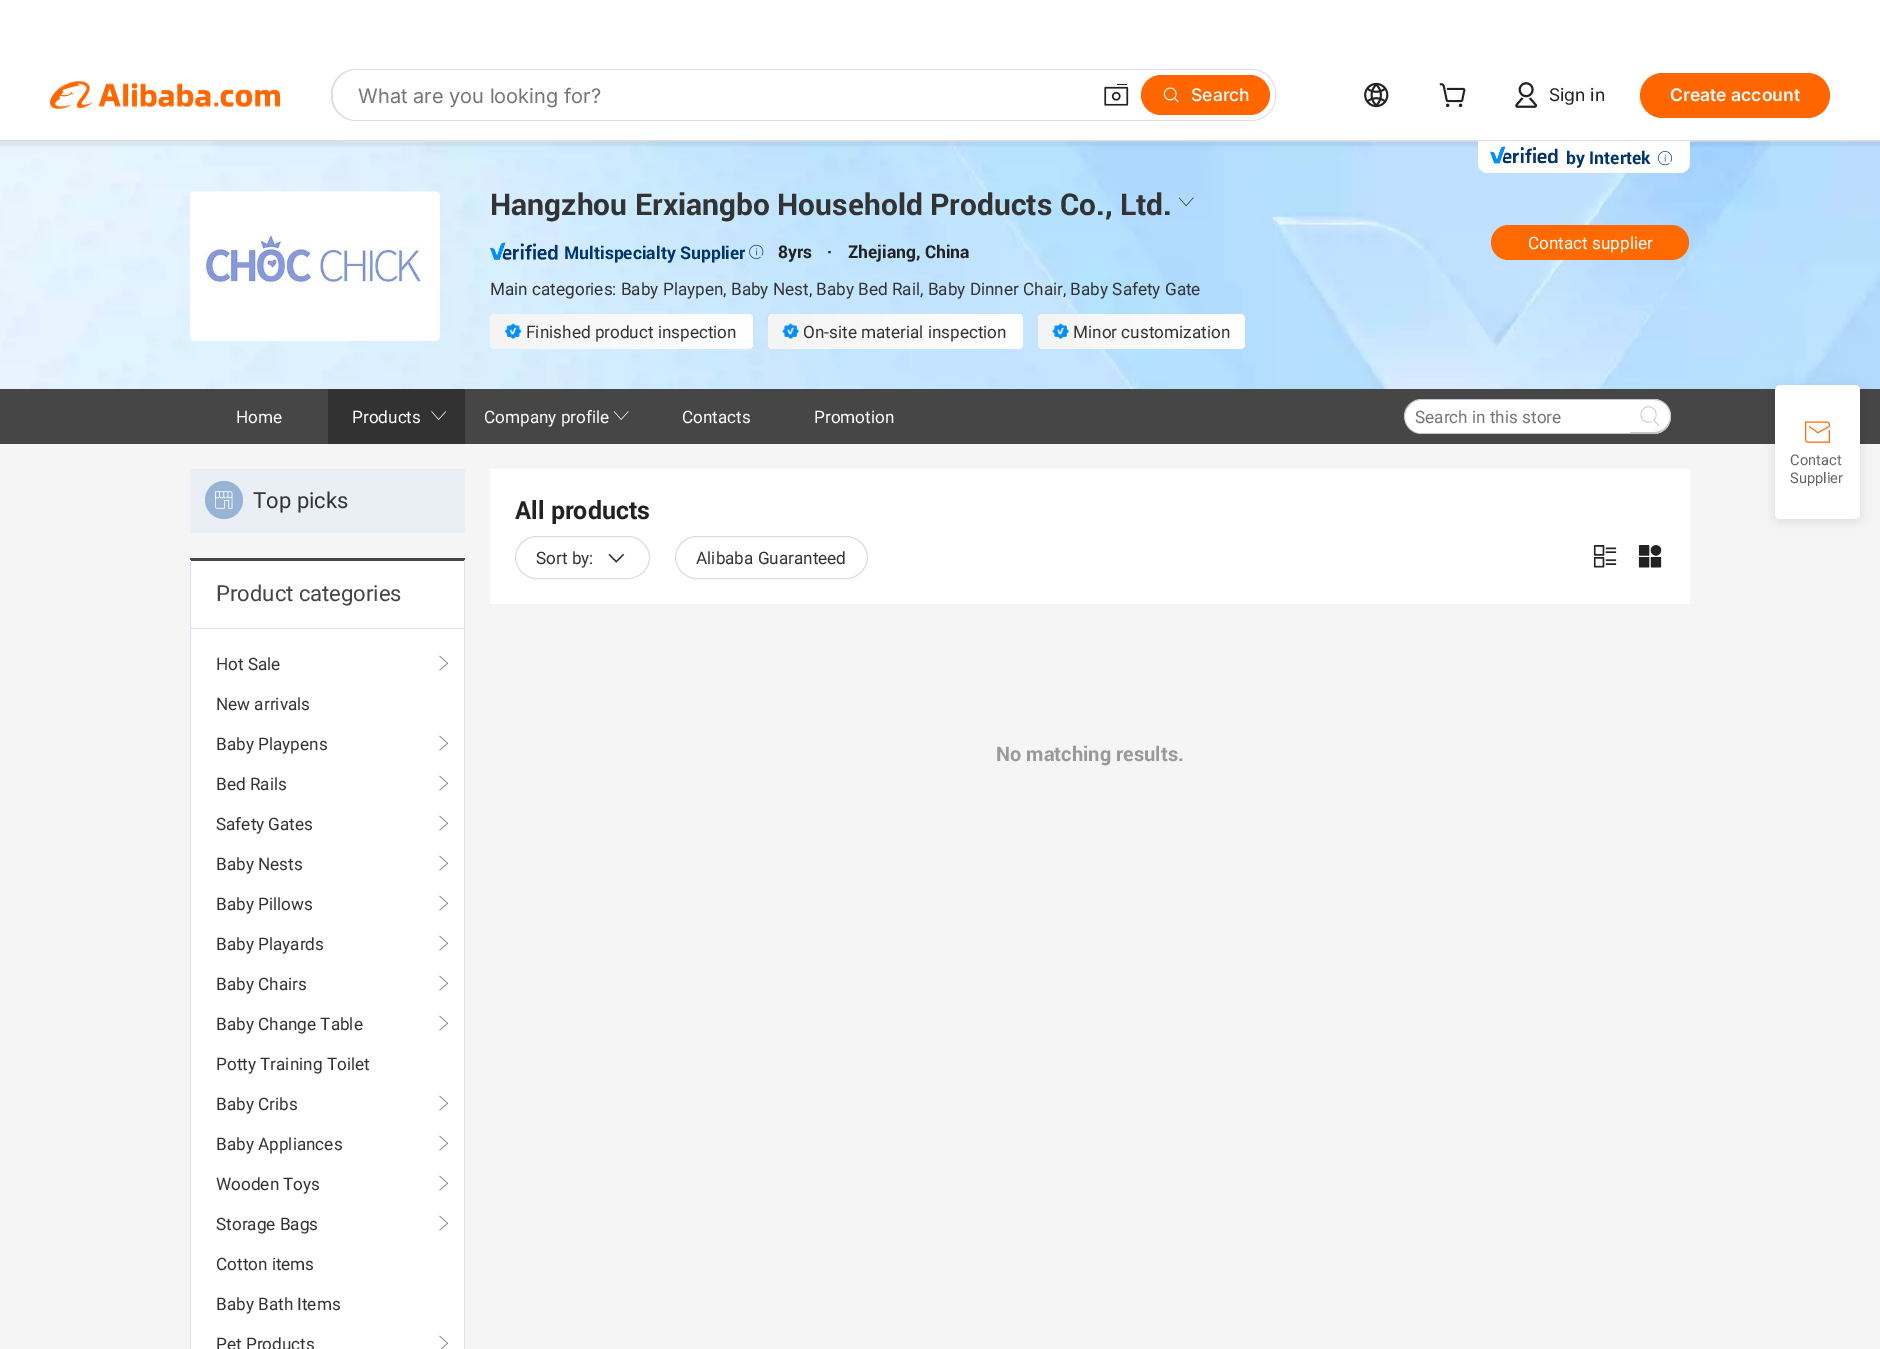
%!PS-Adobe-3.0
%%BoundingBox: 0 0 1880 1349
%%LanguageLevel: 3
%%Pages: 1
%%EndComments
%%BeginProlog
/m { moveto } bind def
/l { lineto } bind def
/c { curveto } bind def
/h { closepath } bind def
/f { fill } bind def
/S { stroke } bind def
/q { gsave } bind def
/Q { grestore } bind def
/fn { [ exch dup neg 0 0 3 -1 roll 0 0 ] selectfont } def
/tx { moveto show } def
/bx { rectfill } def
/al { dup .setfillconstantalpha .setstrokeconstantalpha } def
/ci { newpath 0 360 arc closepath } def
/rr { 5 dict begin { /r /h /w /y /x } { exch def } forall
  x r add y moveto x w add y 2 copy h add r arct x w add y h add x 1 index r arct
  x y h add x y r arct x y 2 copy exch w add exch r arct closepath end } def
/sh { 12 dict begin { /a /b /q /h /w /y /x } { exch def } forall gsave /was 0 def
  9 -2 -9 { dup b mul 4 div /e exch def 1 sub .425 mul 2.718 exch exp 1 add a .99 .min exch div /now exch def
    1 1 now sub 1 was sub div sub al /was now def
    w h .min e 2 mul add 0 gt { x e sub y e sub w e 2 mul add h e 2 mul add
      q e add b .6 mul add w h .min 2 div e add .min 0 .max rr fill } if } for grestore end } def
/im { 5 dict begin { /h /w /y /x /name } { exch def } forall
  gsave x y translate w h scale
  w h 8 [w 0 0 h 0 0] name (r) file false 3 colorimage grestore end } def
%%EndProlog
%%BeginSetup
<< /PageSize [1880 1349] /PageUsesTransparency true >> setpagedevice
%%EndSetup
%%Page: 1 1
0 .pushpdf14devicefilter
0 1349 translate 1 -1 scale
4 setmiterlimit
1 setgray
0 0 1880 1349 bx
(image6.raw) 0 141 1880 1 im
(image7.raw) 0 141 1880 248 im
0 setgray
-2 141 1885 5 0 1 0.05 sh
0.867 setgray
0 140 1880 1 bx
(image0.raw) 50 81 230 28 im
331 69 945 52 25 rr f
1 setgray
333 70 942 50 24 rr f
/Inter-Regular 20 fn
0.459 setgray
(What are you looking for?) 358 103 tx
(image1.raw) 1104 84 25 22 im
1 0.4 0 setrgbcolor
1141 75 129 40 20 rr f
(image2.raw) 1163 87 16 16 im
/Inter-Medium 17.5 fn
1 setgray
(Search) 1191 101 tx
(image3.raw) 1364 82 25 26 im
(image4.raw) 1439 83 27 25 im
(image5.raw) 1515 82 23 26 im
/Inter-Regular 17.5 fn
0.133 setgray
(Sign in) 1549 101 tx
1 0.4 0 setrgbcolor
1640 73 190 45 22.5 rr f
/Inter-SemiBold 17.5 fn
1 setgray
(Create account) 1670 101 tx
1478 141 m 1690 141 l 1690 163 l 1690 168.5 1685.5 173 1680 173 c 1488 173 l 1482.5 173 1478 168.5 1478 163 c h f
(image8.raw) 1490 146 68 18 im
/Roboto-Bold 17.5 fn
0 0.204 0.431 setrgbcolor
(by Intertek) 1566 164 tx
(image9.raw) 1658 151 15 15 im
(image10.raw) 190 191 250 150 im
/Roboto-Bold 30 fn
0.2 setgray
(Hangzhou Erxiangbo Household Products Co., Ltd.) 490 215 tx
(image11.raw) 1178 197 16 10 im
(image12.raw) 490 242 68 18 im
/Roboto-Bold 17.5 fn
0 0.204 0.431 setrgbcolor
(Multispecialty Supplier) 564 259 tx
(image13.raw) 749 244 15 15 im
0.133 setgray
(8yrs) 778 258 tx
(·) 827 258 tx
(Zhejiang, China) 848 258 tx
/Roboto-Regular 17.5 fn
0.2 setgray
(Main categories: Baby Playpen, Baby Nest, Baby Bed Rail, Baby Dinner Chair, Baby Safety Gate) 490 295 tx
q 490 314 263 35 5 rr clip newpath
<< /ShadingType 2 /ColorSpace /DeviceRGB /Coords [753 331 490 331] /Extend [true true] /Function << /FunctionType 2 /Domain [0 1] /C0 [1 1 1] /C1 [0.957 0.957 0.957] /N 1 >> >> shfill Q
(image14.raw) 505 323 17 16 im
(Finished product inspection) 526 338 tx
q 768 314 255 35 5 rr clip newpath
<< /ShadingType 2 /ColorSpace /DeviceRGB /Coords [1023 331 768 331] /Extend [true true] /Function << /FunctionType 2 /Domain [0 1] /C0 [1 1 1] /C1 [0.957 0.957 0.957] /N 1 >> >> shfill Q
(image15.raw) 782 323 17 16 im
(On-site material inspection) 803 338 tx
q 1038 314 207 35 5 rr clip newpath
<< /ShadingType 2 /ColorSpace /DeviceRGB /Coords [1245 331 1038 331] /Extend [true true] /Function << /FunctionType 2 /Domain [0 1] /C0 [1 1 1] /C1 [0.957 0.957 0.957] /N 1 >> >> shfill Q
(image16.raw) 1052 323 17 16 im
(Minor customization) 1073 338 tx
1 0.416 0 setrgbcolor
1491 225 198 35 17.5 rr f
1 setgray
(Contact supplier) 1528 249 tx
0.275 setgray
0 389 1880 55 bx
1 setgray
(Home) 236 423 tx
0.196 setgray
328 389 137 55 bx
1 setgray
(Products) 352 423 tx
(image17.raw) 431 411 15 9 im
(Company profile) 484 423 tx
(image18.raw) 613 411 16 9 im
(Contacts) 682 423 tx
(Promotion) 814 423 tx
0.769 0.776 0.812 setrgbcolor
1421 399 m 1630 399 l 1630 434 l 1421 434 l 1412 434 1404 426 1404 416 c 1404 407 1412 399 1421 399 c h 1421 400 m 1630 400 l 1630 432 l 1421 432 l 1412 432 1405 425 1405 416 c 1405 407 1412 400 1421 400 c h eofill
1 setgray
1421.5 400 m 1629.5 400 l 1630 400 1630 400 1630 400.5 c 1630 432.5 l 1630 433 1630 433 1629.5 433 c 1421.5 433 l 1412.5 433 1405 425.5 1405 416.5 c 1405 407.5 1412.5 400 1421.5 400 c h f
0.459 setgray
(Search in this store) 1415 423 tx
1 setgray
1630 399 m 1653.5 399 l 1663 399 1671 407 1671 416.5 c 1671 426 1663 434 1653.5 434 c 1630 434 l h f
0.769 0.776 0.812 setrgbcolor
1630 399 m 1654 399 l 1663 399 1671 407 1671 416 c 1671 426 1663 434 1654 434 c 1630 434 l h 1630 400 m 1654 400 l 1663 400 1670 407 1670 416 c 1670 425 1663 432 1654 432 c 1630 432 l h eofill
(image19.raw) 1640 406 20 21 im
0.961 setgray
0 444 1880 905 bx
0.914 0.937 0.961 setrgbcolor
190 469 275 64 bx
0.592 0.702 0.835 setrgbcolor
224 500 19 ci f
(image20.raw) 214 491 19 18 im
/Roboto-Regular 22.5 fn
0.2 setgray
(Top picks) 253 508 tx
1 setgray
191 561 273 788 bx
0.275 setgray
190 558 275 3 bx
0.859 0.89 0.937 setrgbcolor
464 560 1 789 bx
190 560 1 789 bx
191 628 273 1 bx
0.275 setgray
(Product categories) 216 601 tx
/Roboto-Regular 17.5 fn
0.2 setgray
(Hot Sale) 216 670 tx
(image21.raw) 439 655 10 16 im
(New arrivals) 216 710 tx
(Baby Playpens) 216 750 tx
(image21.raw) 439 735 10 16 im
(Bed Rails) 216 790 tx
(image21.raw) 439 775 10 16 im
(Safety Gates) 216 830 tx
(image21.raw) 439 815 10 16 im
(Baby Nests) 216 870 tx
(image21.raw) 439 855 10 16 im
(Baby Pillows) 216 910 tx
(image21.raw) 439 895 10 16 im
(Baby Playards) 216 950 tx
(image21.raw) 439 935 10 16 im
(Baby Chairs) 216 990 tx
(image21.raw) 439 975 10 16 im
(Baby Change Table) 216 1030 tx
(image21.raw) 439 1015 10 16 im
(Potty Training Toilet) 216 1070 tx
(Baby Cribs) 216 1110 tx
(image21.raw) 439 1095 10 16 im
(Baby Appliances) 216 1150 tx
(image21.raw) 439 1135 10 16 im
(Wooden Toys) 216 1190 tx
(image21.raw) 439 1175 10 16 im
(Storage Bags) 216 1230 tx
(image21.raw) 439 1215 10 16 im
(Cotton items) 216 1270 tx
(Baby Bath Items) 216 1310 tx
(Pet Products) 216 1350 tx
(image22.raw) 439 1335 10 14 im
1 setgray
490 469 1200 135 bx
/Roboto-Bold 25 fn
0.133 setgray
(All products) 515 519 tx
0.867 setgray
515.5 536.5 134 42 21 rr S
/Roboto-Regular 17.5 fn
0.2 setgray
(Sort by:) 536 564 tx
(image23.raw) 608 553 17 10 im
0.867 setgray
675.5 536.5 192 42 21 rr S
0.2 setgray
(Alibaba Guaranteed) 696 564 tx
(image24.raw) 1593 545 24 23 im
(image25.raw) 1638 544 24 24 im
/Roboto-Bold 20 fn
0.6 setgray
(No matching results.) 996 761 tx
0 setgray
1775 388 85 133 5 6 0.1 sh
1 setgray
1775 385 85 134 5 rr f
(image26.raw) 1805 421 25 22 im
/Roboto-Regular 15 fn
0.4 setgray
(Contact) 1790 465 tx
(Supplier) 1790 483 tx
.poppdf14devicefilter showpage
%%EOF
